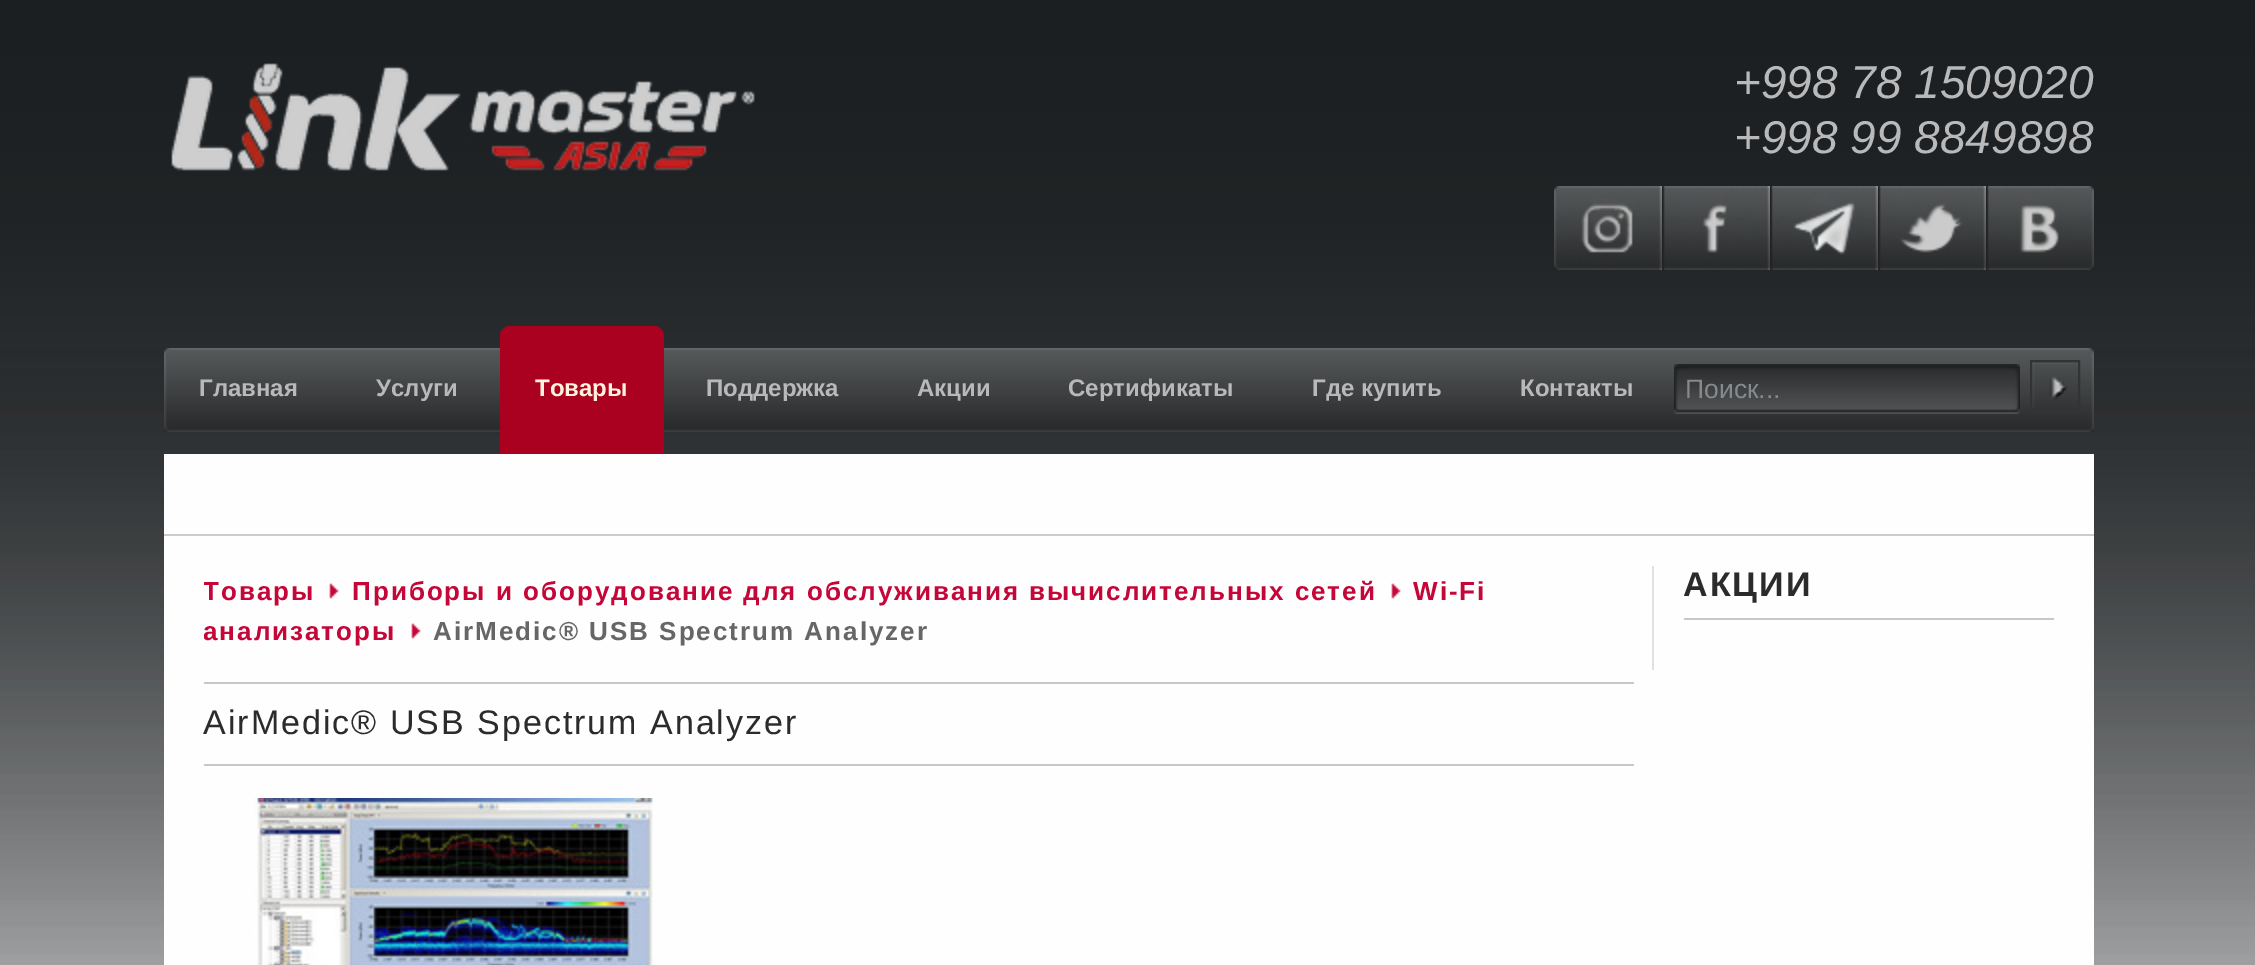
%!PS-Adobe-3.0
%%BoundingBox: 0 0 2255 965
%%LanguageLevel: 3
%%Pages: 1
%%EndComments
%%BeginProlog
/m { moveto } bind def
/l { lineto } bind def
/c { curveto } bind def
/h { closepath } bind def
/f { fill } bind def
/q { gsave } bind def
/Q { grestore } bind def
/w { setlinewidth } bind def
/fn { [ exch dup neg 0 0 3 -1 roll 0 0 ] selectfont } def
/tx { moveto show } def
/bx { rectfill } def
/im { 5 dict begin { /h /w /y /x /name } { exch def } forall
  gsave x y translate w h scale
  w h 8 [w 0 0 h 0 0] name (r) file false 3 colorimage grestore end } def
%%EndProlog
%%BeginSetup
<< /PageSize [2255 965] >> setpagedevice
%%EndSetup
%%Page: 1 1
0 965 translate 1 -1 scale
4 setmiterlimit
1 setgray
0 0 2255 965 bx
(image0.raw) 0 0 2255 965 im
(image1.raw) 171 63 584 108 im
/LiberationSans-Italic 46 fn
0.725 setgray
(+998 78 1509020) 1734 98 tx
(+998 99 8849898) 1734 153 tx
(image2.raw) 1554 186 108 84 im
(image3.raw) 1662 186 108 84 im
(image4.raw) 1770 186 108 84 im
(image5.raw) 1878 186 108 84 im
(image6.raw) 1986 186 108 84 im
(image7.raw) 164 348 1930 84 im
/LiberationSans-Bold 24 fn
(Главная) 199 396 tx
(Услуги) 376 396 tx
0.671 0.004 0.129 setrgbcolor
510 326 m 654 326 l 659.5 326 664 330.5 664 336 c 664 454 l 500 454 l 500 336 l 500 330.5 504.5 326 510 326 c h f
1 0.953 0.863 setrgbcolor
(Товары) 535 396 tx
0.725 setgray
(Поддержка) 706 396 tx
(Акции) 917 396 tx
(Сертификаты) 1068 396 tx
(Где купить) 1312 396 tx
(Контакты) 1520 396 tx
(image8.raw) 1674 364 346 50 im
/LiberationSans-Regular 26.5 fn
0.525 0.541 0.553 setrgbcolor
(Поиск...) 1685 398 tx
(image9.raw) 2032 362 46 46 im
0.2 setgray
2 w
2031 361 48 48 rectstroke
0.996 setgray
164 454 1930 80 bx
0.8 setgray
164 534 1930 2 bx
0.996 setgray
164 536 1930 429 bx
0.784 setgray
204 682 1430 2 bx
q
204 566 1430 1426 rectclip
/LiberationSans-Bold 26 fn
0.773 0.024 0.22 setrgbcolor
203 600 m 2 0 (Товары) ashow
Q
(image10.raw) 329 583 10 16 im
/LiberationSans-Bold 26 fn
0.773 0.024 0.22 setrgbcolor
352 600 m 2 0 (Приборы и оборудование для обслуживания вычислительных сетей) ashow
(image10.raw) 1391 583 10 16 im
1413 600 m 2 0 (Wi-Fi) ashow
q
204 566 1430 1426 rectclip
203 640 m 2 0 (анализаторы) ashow
Q
(image10.raw) 411 623 10 16 im
0.4 setgray
433 640 m 2 0 (AirMedic® USB Spectrum Analyzer) ashow
0.784 setgray
204 764 1430 2 bx
/LiberationSans-Regular 34 fn
0.169 setgray
203 734 m 2 0 (AirMedic® USB Spectrum Analyzer) ashow
(image11.raw) 254 798 400 167 im
0.882 setgray
1652 566 2 104 bx
0.784 setgray
1684 618 370 2 bx
/LiberationSans-Bold 34 fn
0.169 setgray
1683 596 m 2 0 (АКЦИИ) ashow
showpage
%%EOF
